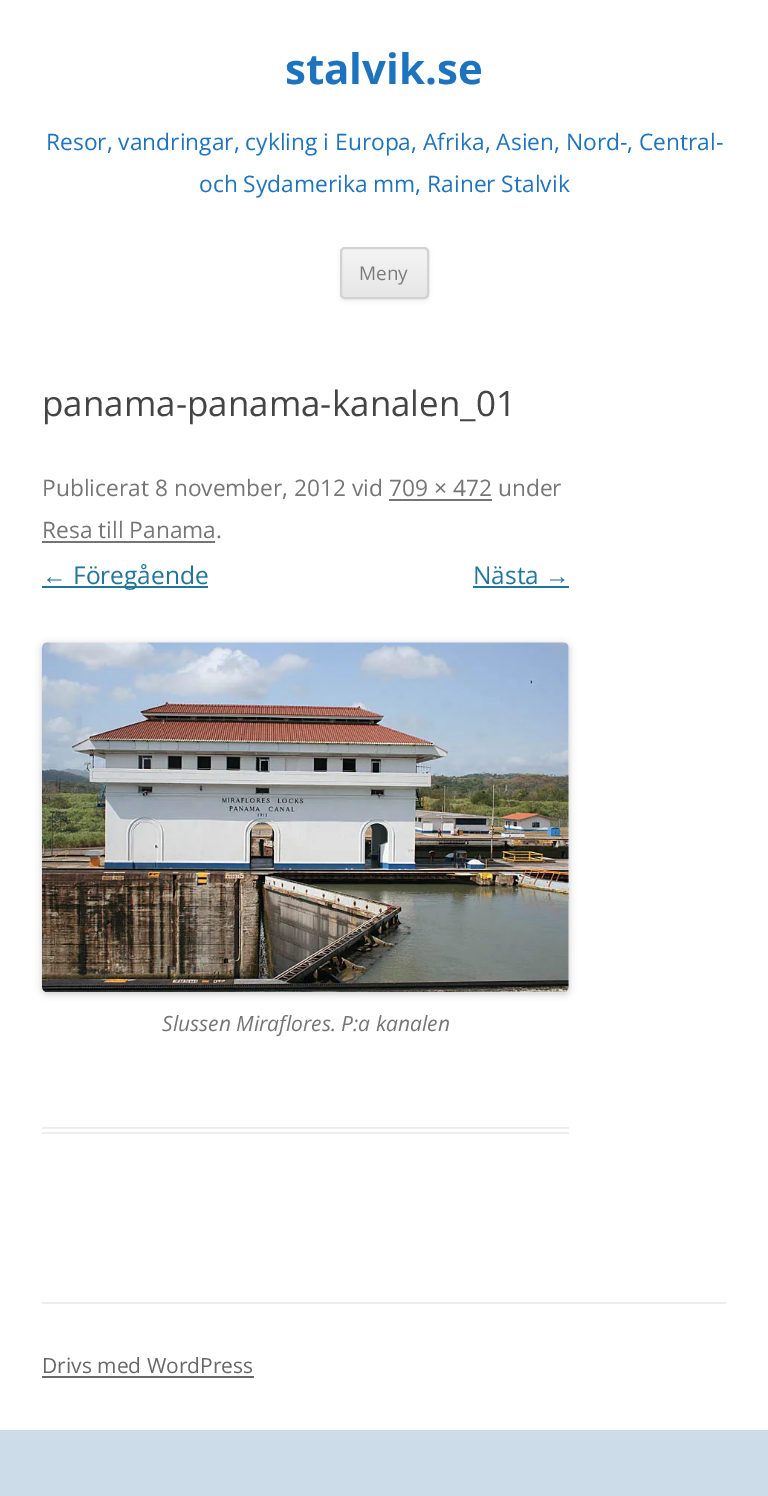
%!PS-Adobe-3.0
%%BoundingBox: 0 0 768 1496
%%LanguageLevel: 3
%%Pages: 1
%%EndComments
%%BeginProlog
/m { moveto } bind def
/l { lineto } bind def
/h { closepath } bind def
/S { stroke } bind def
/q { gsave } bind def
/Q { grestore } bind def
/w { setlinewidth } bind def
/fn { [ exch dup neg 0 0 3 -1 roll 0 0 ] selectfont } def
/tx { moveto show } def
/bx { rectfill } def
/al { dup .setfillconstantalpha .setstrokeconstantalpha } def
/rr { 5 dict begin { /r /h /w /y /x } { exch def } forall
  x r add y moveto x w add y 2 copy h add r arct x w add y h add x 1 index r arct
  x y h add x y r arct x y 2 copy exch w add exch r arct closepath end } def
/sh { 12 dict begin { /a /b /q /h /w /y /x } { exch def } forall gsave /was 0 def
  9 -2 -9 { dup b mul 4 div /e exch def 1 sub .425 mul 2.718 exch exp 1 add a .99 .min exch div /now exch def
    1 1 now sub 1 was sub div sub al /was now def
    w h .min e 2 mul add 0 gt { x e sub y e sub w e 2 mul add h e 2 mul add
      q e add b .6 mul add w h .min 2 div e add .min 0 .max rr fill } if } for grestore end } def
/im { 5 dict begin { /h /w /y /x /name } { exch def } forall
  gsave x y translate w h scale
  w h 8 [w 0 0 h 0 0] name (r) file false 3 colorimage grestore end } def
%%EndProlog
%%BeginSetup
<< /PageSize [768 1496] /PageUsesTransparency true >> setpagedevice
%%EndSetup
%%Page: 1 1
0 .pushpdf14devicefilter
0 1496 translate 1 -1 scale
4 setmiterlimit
0.8 0.863 0.91 setrgbcolor
0 0 768 1496 bx
1 setgray
0 0 768 1430 bx
/OpenSans-Bold 42 fn
0.118 0.451 0.745 setrgbcolor
(stalvik.se) 285 84 tx
/OpenSans-Regular 22.75 fn
(Resor, vandringar, cykling i Europa, Afrika, Asien, Nord-, Central-) 46 150 tx
(och Sydamerika mm, Rainer Stalvik) 199 192 tx
0.251 setgray
340 249 89 52 5 2 0.1 sh
q
340 247 89 52 5 rr clip newpath
q 340 249 m 429 249 l 429 298 l 340 298 l h clip newpath
<< /ShadingType 2 /ColorSpace /DeviceRGB /Coords [384 249 384 298] /Extend [true true] /Function << /FunctionType 2 /Domain [0 1] /C0 [0.957 0.957 0.957] /C1 [0.902 0.902 0.902] /N 1 >> >> shfill Q
Q
0.824 setgray
2 w
341 248 87 50 4 rr S
/OpenSans-Regular 19 fn
0.486 setgray
(Meny) 359 280 tx
0.929 setgray
42 1127 527 2 bx
42 1132 527 2 bx
/OpenSans-Regular 35 fn
0.267 setgray
(panama-panama-kanalen_01) 42 416 tx
/OpenSans-Regular 22.75 fn
0.459 setgray
(Publicerat 8 november, 2012 vid 709 × 472 under) 42 496 tx
389 499 103 2 bx
(Resa till Panama.) 42 538 tx
42 541 173 2 bx
/LiberationSans-Regular 24.5 fn
0.129 0.459 0.608 setrgbcolor
(←) 42 584 tx
42 586 166 2 bx
/OpenSans-Regular 24.5 fn
(Föregående) 73 584 tx
(Nästa) 473 584 tx
/LiberationSans-Regular 24.5 fn
(→) 545 584 tx
473 586 96 2 bx
0 setgray
42 644 527 350 5 3.5 0.2 sh
(image0.raw) 42 642 527 351 im
/OpenSans-Italic 21 fn
0.459 setgray
(Slussen Miraflores. P:a kanalen) 162 1031 tx
0.929 setgray
42 1302 684 2 bx
/OpenSans-Regular 21 fn
0.408 setgray
(Drivs med WordPress) 42 1373 tx
42 1376 212 2 bx
.poppdf14devicefilter showpage
%%EOF
